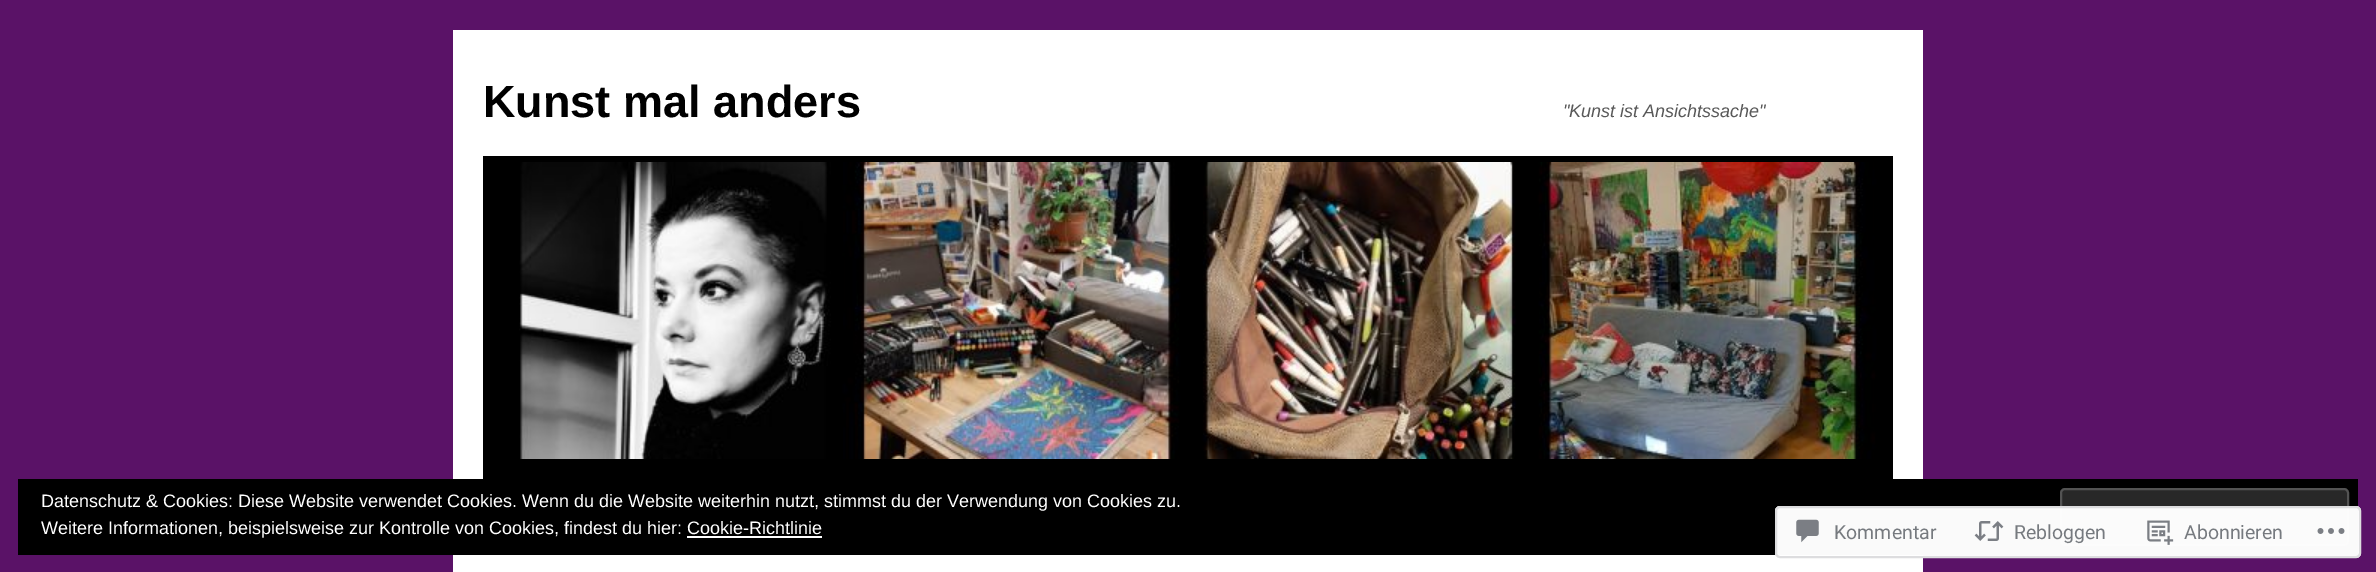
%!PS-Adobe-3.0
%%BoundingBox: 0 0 2376 572
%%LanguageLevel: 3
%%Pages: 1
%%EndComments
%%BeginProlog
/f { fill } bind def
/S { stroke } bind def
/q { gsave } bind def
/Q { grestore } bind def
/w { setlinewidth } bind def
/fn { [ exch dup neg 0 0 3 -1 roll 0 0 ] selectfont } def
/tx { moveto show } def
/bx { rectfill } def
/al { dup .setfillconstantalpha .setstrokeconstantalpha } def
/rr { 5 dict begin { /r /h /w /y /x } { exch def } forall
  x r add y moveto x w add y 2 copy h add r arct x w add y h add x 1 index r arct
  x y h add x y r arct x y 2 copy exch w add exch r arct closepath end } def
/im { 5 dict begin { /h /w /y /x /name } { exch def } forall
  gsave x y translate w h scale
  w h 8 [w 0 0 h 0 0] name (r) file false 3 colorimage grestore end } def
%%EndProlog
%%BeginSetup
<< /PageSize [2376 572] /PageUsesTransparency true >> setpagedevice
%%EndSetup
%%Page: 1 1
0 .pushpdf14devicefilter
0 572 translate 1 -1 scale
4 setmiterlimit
0.353 0.071 0.404 setrgbcolor
0 0 2376 572 bx
1 setgray
453 30 1470 542 bx
/Arimo-Bold 45 fn
0 setgray
(Kunst mal anders) 483 117 tx
/Arimo-Italic 18 fn
0.349 setgray
("Kunst ist Ansichtssache") 1563 117 tx
0 setgray
483 156 1410 6 bx
483 459 1410 20 bx
(image0.raw) 483 162 1410 297 im
18 479 2340 76 bx
/Arimo-Regular 18 fn
1 setgray
(Datenschutz & Cookies: Diese Website verwendet Cookies. Wenn du die Website weiterhin nutzt, stimmst du der Verwendung von Cookies zu.) 41 507 tx
0.157 setgray
2061 489 287 56 4 rr q f Q
0.325 setgray
2 w
S
1 setgray
(Weitere Informationen, beispielsweise zur Kontrolle von Cookies, findest du hier: Cookie-Richtlinie) 41 534 tx
687 536 135 2 bx
0.98 al
1775 506 586 52 5 rr f
0.863 0.863 0.871 setrgbcolor
1776 507 584 50 4 rr S
1 al
(image1.raw) 1796 519 23 24 im
/Roboto-Regular 19.5 fn
0.463 0.478 0.498 setrgbcolor
(Kommentar) 1834 539 tx
(image2.raw) 1974 521 30 20 im
(Rebloggen) 2014 539 tx
(image3.raw) 2147 520 27 25 im
(Abonnieren) 2184 539 tx
(image4.raw) 2317 528 28 6 im
.poppdf14devicefilter showpage
%%EOF
